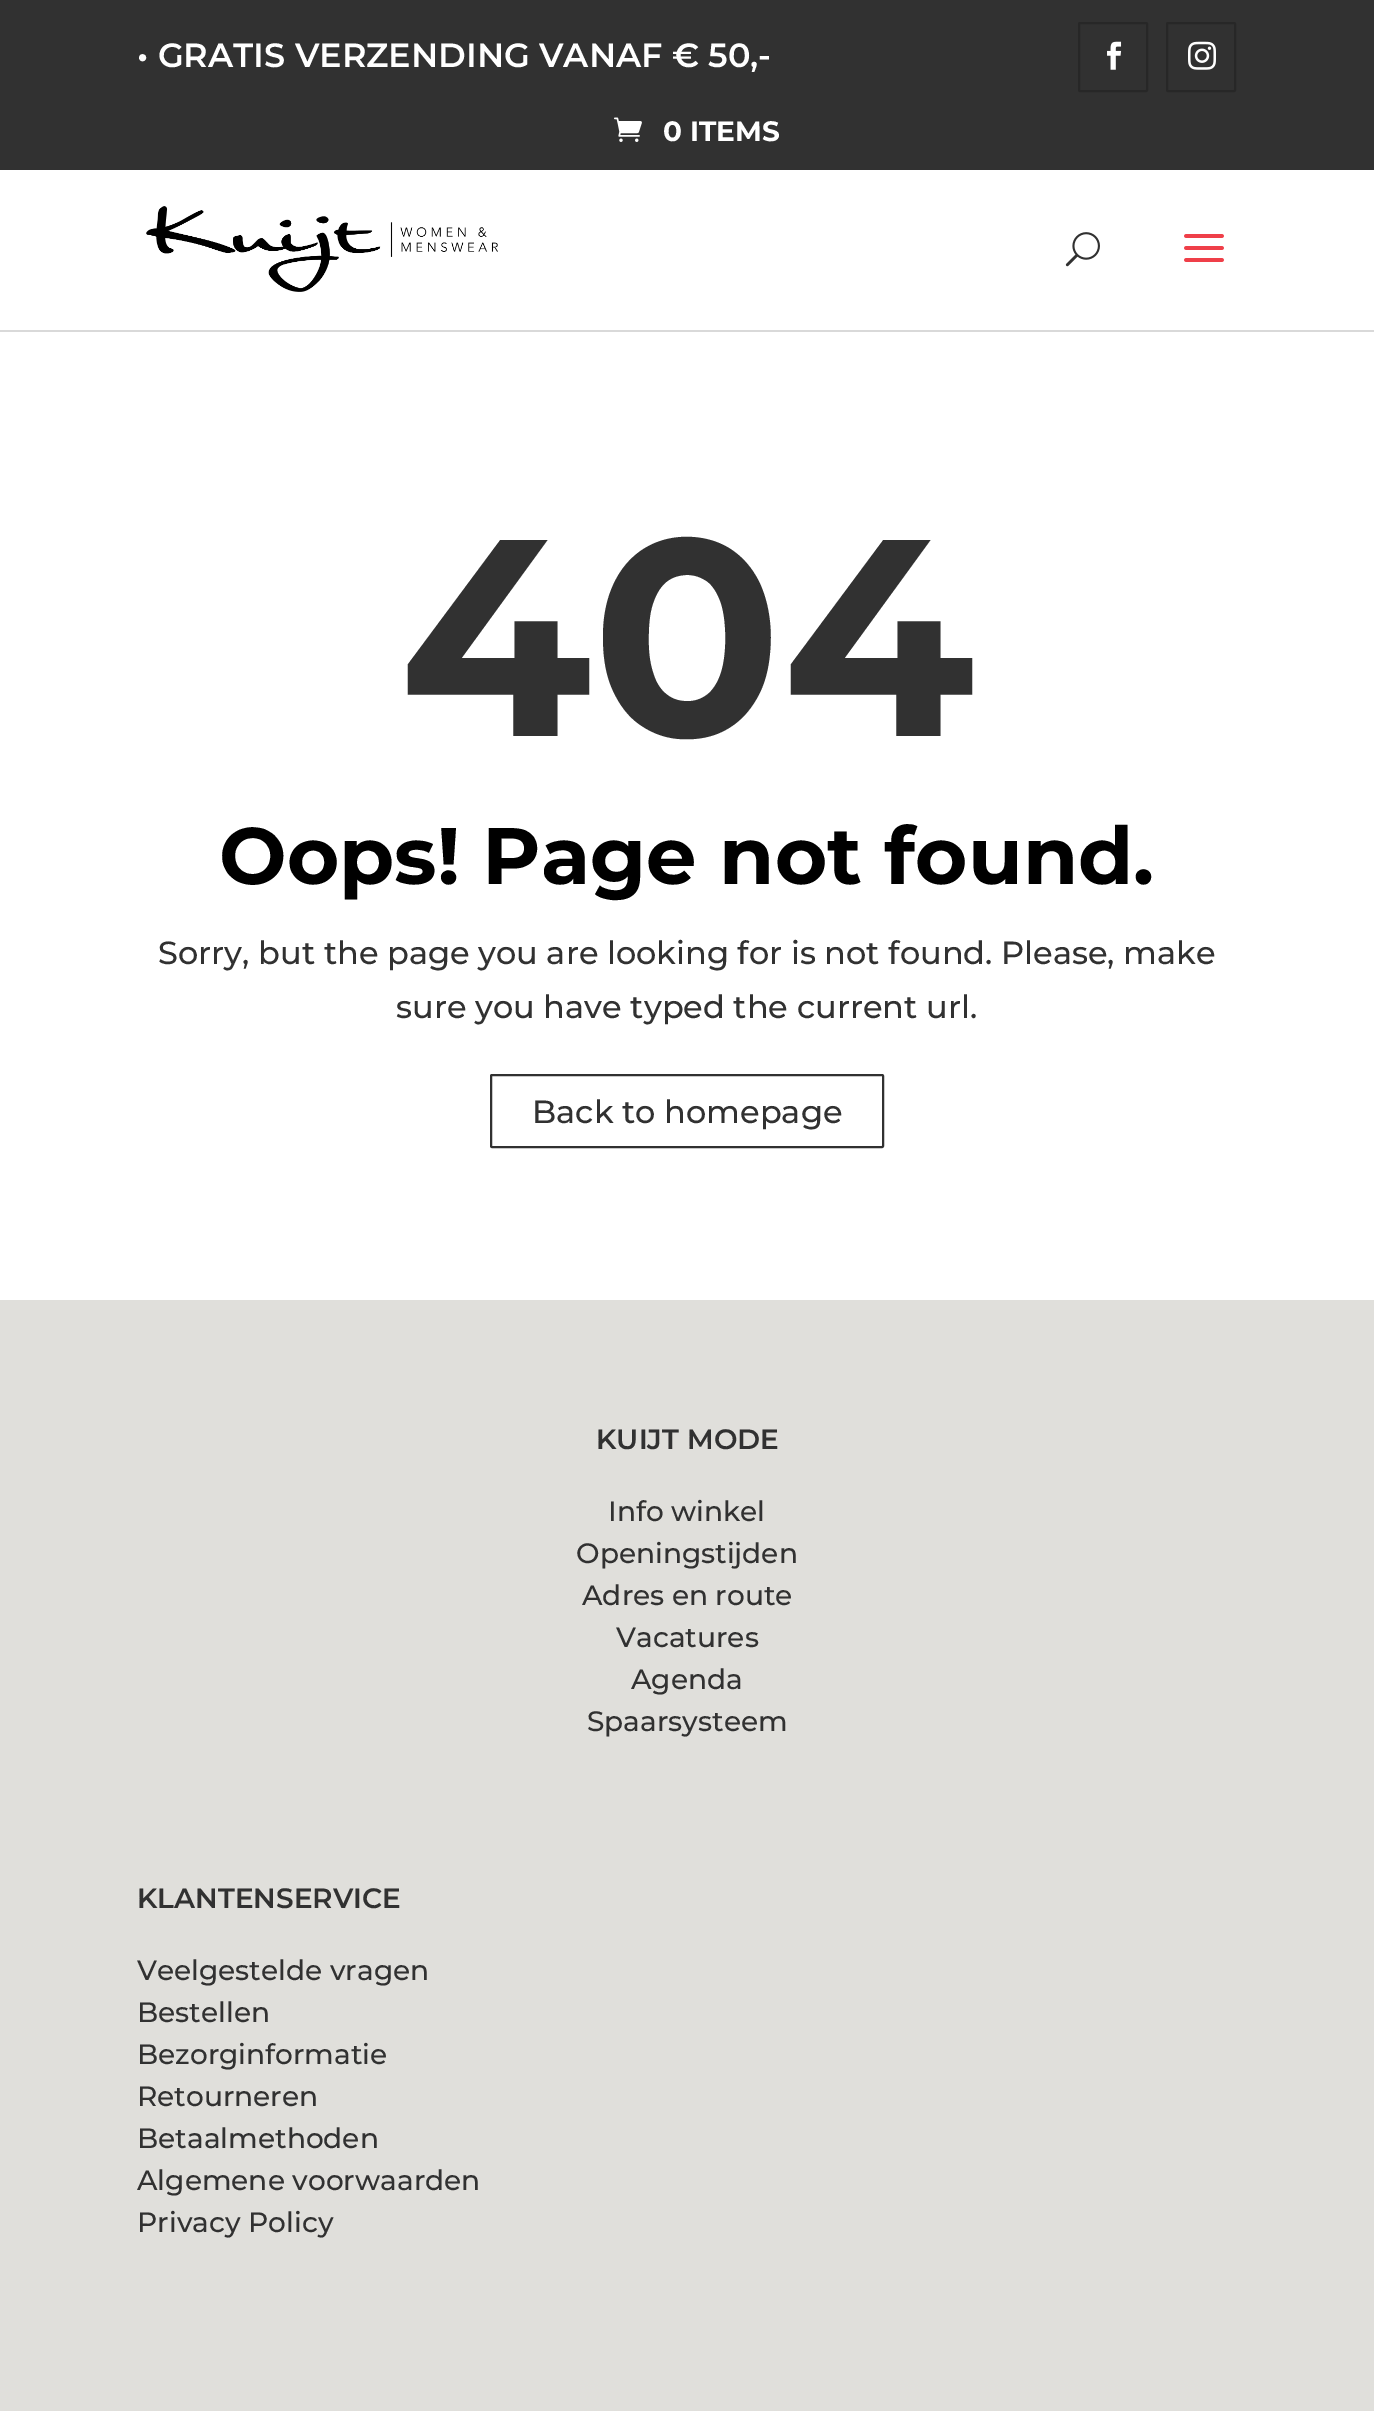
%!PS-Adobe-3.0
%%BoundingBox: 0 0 1374 2411
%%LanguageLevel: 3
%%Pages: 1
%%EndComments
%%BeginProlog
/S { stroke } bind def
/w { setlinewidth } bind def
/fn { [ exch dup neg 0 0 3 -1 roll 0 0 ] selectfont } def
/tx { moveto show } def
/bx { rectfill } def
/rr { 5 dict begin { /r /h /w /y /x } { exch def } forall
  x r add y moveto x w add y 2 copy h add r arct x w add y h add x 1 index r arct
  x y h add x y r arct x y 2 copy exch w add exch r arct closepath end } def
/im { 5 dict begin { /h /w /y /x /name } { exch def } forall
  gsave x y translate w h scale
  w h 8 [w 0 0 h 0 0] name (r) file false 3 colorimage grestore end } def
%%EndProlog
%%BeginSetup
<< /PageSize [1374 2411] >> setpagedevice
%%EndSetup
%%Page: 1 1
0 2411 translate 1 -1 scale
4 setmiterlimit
1 setgray
0 0 1374 2411 bx
0.192 setgray
0 0 1374 170 bx
/Montserrat-SemiBold 33.6 fn
1 setgray
(• GRATIS VERZENDING VANAF € 50,-) 137 67 tx
0.153 setgray
2 w
1079 23 68 68 1 rr S
(image0.raw) 1107 41 15 29 im
1167 23 68 68 1 rr S
(image1.raw) 1188 41 28 29 im
(image2.raw) 614 117 28 25 im
/Montserrat-Bold 28 fn
1 setgray
(0 ITEMS) 663 141 tx
0.851 setgray
0 330 1374 2 bx
(image3.raw) 146 206 352 86 im
(image4.raw) 1065 232 35 35 im
(image5.raw) 1184 234 40 28 im
/Montserrat-Bold 280 fn
0.192 setgray
(404) 399 736 tx
/Montserrat-Bold 80 fn
0 setgray
(Oops! Page not found.) 219 884 tx
/Montserrat-Medium 32 fn
0.192 setgray
(Sorry, but the page you are looking for is not found. Please, make) 158 964 tx
(sure you have typed the current url.) 396 1018 tx
491 1075 392 72 1 rr S
(Back to homepage) 532 1123 tx
0.878 0.875 0.859 setrgbcolor
0 1300 1374 1111 bx
/Montserrat-SemiBold 28 fn
0.192 setgray
(KUIJT MODE) 596 1449 tx
/Montserrat-Medium 28 fn
(Info winkel) 608 1521 tx
(Openingstijden) 576 1563 tx
(Adres en route) 582 1605 tx
(Vacatures) 616 1647 tx
(Agenda) 631 1689 tx
(Spaarsysteem) 587 1731 tx
/Montserrat-SemiBold 28 fn
(KLANTENSERVICE) 137 1908 tx
/Montserrat-Medium 28 fn
(Veelgestelde vragen) 137 1980 tx
(Bestellen) 137 2022 tx
(Bezorginformatie) 137 2064 tx
(Retourneren) 137 2106 tx
(Betaalmethoden) 137 2148 tx
(Algemene voorwaarden) 137 2190 tx
(Privacy Policy) 137 2232 tx
showpage
%%EOF
